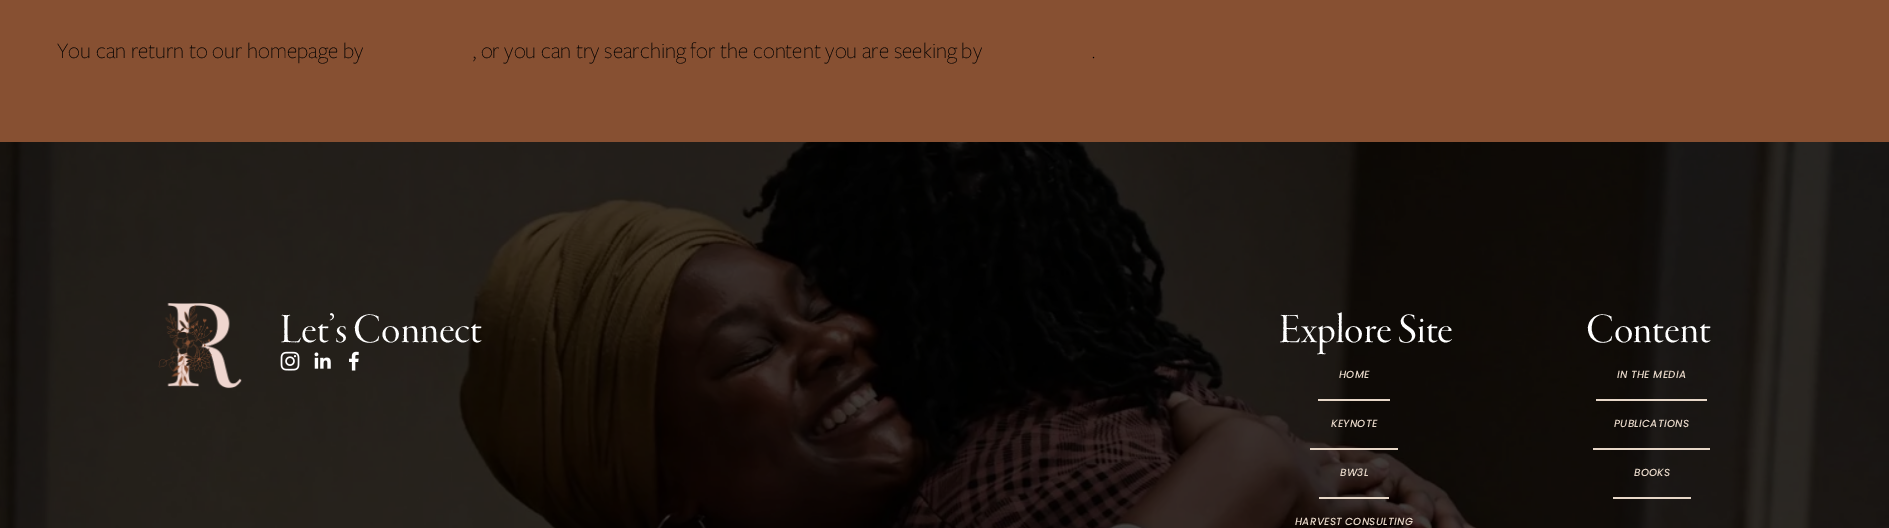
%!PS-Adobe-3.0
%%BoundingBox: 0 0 1889 528
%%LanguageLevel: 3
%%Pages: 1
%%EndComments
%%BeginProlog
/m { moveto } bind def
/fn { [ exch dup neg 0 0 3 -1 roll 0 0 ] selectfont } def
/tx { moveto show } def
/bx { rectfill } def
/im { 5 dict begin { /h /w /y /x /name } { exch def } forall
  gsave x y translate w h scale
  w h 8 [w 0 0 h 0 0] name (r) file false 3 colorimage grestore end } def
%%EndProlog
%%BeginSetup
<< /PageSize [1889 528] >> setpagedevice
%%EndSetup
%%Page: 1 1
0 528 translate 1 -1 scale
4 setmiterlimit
0.529 0.314 0.196 setrgbcolor
0 0 1889 528 bx
/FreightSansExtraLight-Light 22.8 fn
0 setgray
(You can return to our homepage by) 57 58 tx
(, or you can try searching for the content you are seeking by) 473 58 tx
(.) 1092 58 tx
(image0.raw) 0 142 1889 386 im
(image1.raw) 158 303 84 86 im
/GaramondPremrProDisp-Regular 43 fn
1 setgray
(Let’s Connect) 280 342 tx
(Explore Site) 1279 342 tx
(Content) 1586 342 tx
(image2.raw) 280 351 20 20 im
(image3.raw) 314 352 17 17 im
(image4.raw) 349 351 10 20 im
0.906 0.843 0.784 setrgbcolor
1318 399 72 2 bx
/Poppins-MediumItalic 10.25 fn
1339 378 m 0.25 0 (HOME) ashow
1596 399 111 2 bx
1617 378 m 0.25 0 (IN THE MEDIA) ashow
1310 448 88 2 bx
1331 427 m 0.25 0 (KEYNOTE) ashow
1593 448 117 2 bx
1614 427 m 0.25 0 (PUBLICATIONS) ashow
1319 497 70 2 bx
1340 476 m 0.25 0 (BW3L) ashow
1613 497 78 2 bx
1634 476 m 0.25 0 (BOOKS) ashow
1295 525 m 0.25 0 (HARVEST CONSULTING) ashow
showpage
%%EOF
